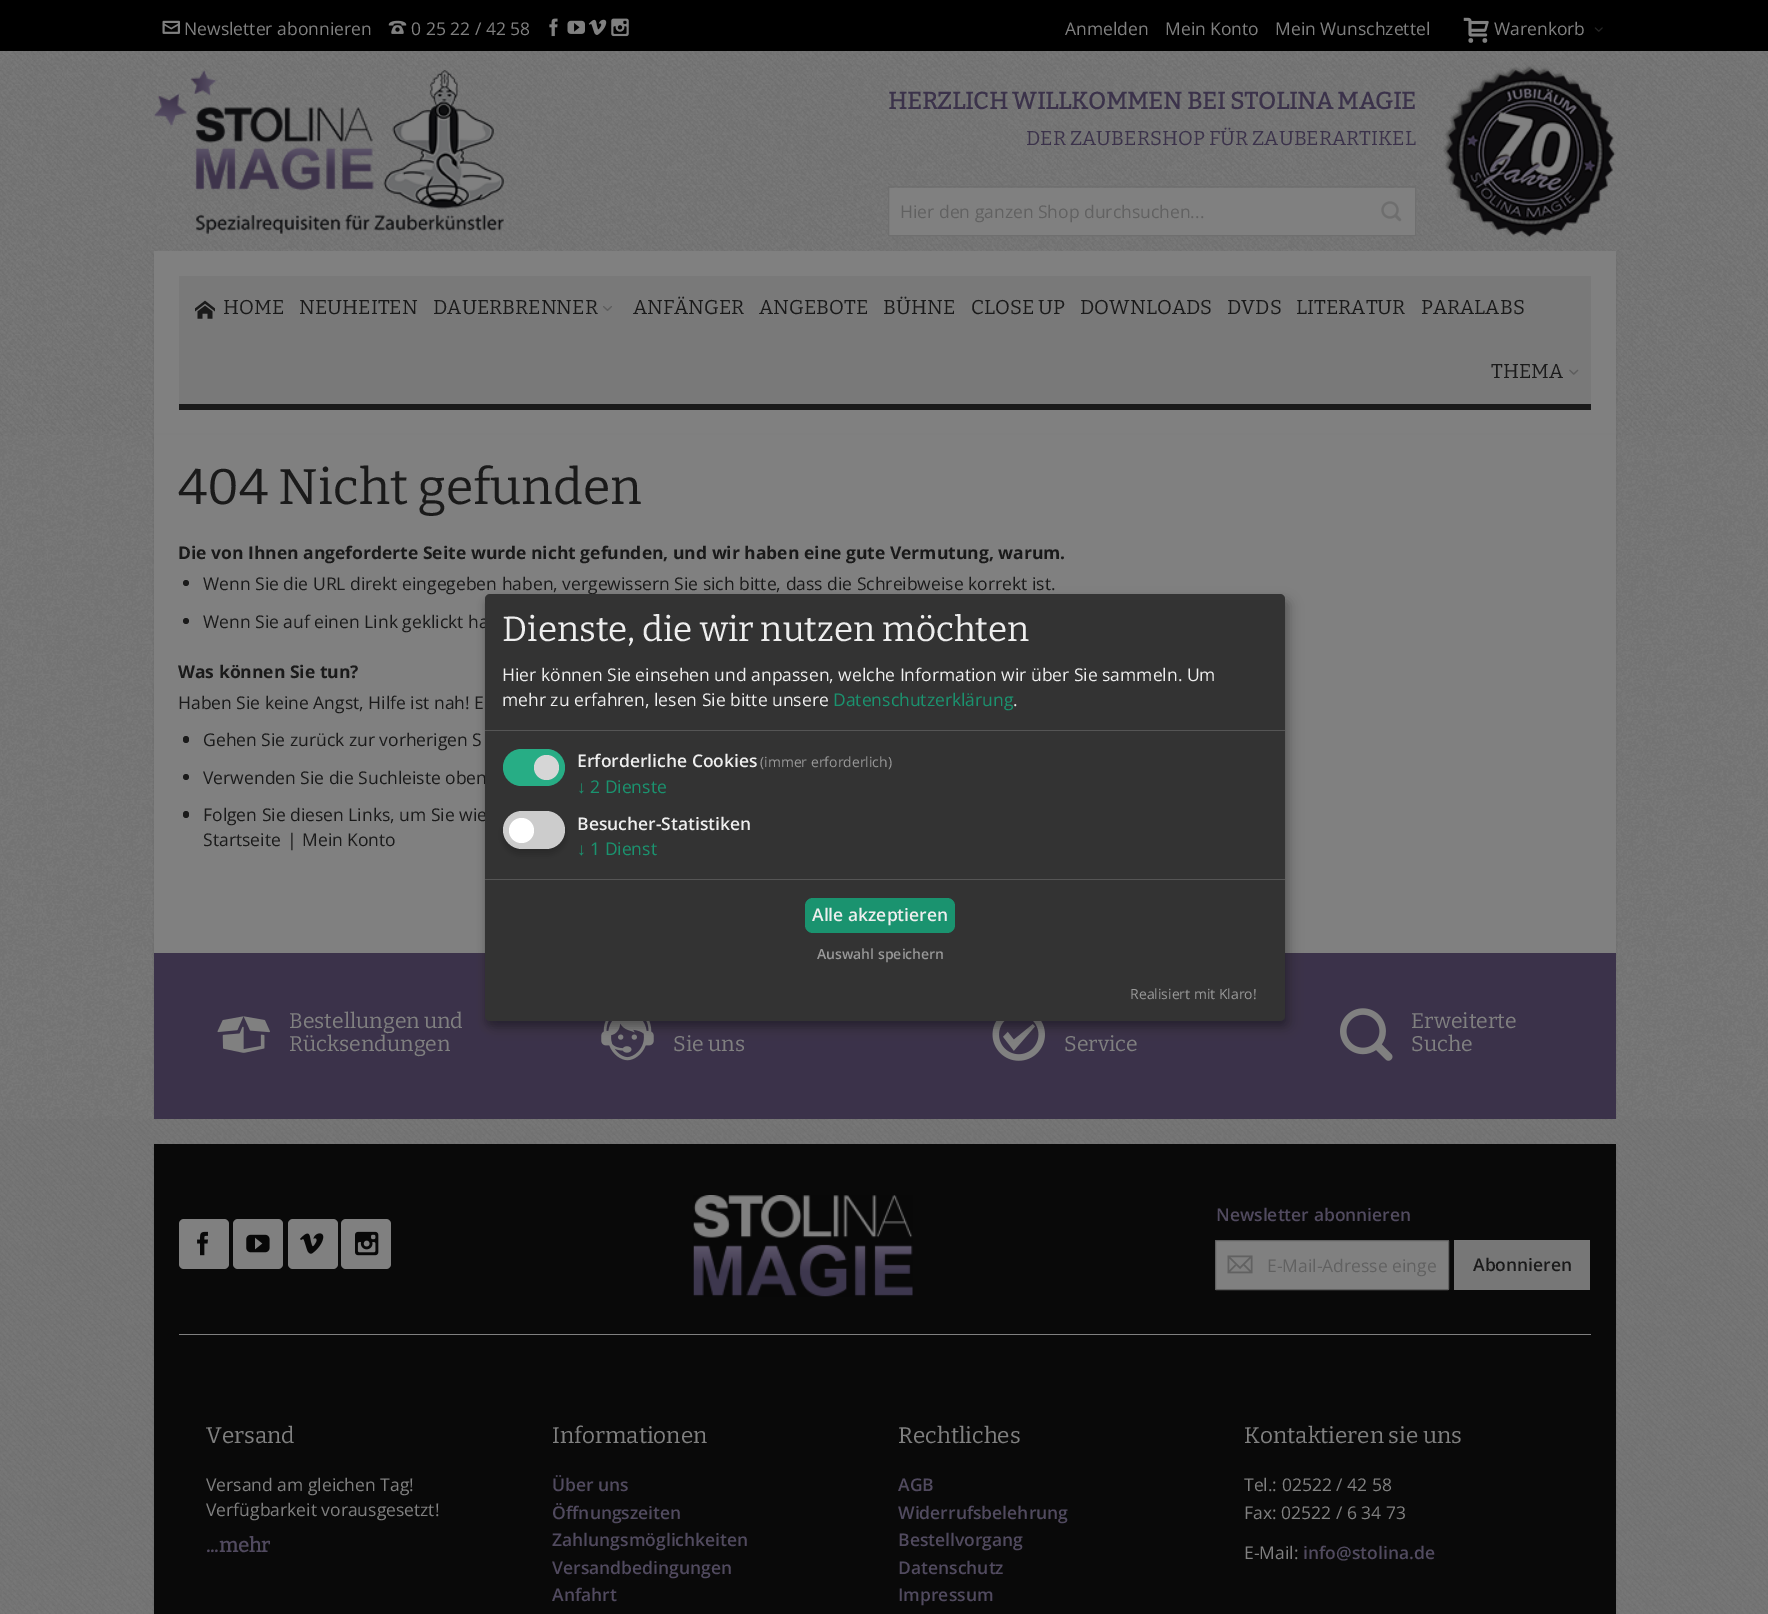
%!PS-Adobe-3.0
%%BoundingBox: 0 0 1768 1614
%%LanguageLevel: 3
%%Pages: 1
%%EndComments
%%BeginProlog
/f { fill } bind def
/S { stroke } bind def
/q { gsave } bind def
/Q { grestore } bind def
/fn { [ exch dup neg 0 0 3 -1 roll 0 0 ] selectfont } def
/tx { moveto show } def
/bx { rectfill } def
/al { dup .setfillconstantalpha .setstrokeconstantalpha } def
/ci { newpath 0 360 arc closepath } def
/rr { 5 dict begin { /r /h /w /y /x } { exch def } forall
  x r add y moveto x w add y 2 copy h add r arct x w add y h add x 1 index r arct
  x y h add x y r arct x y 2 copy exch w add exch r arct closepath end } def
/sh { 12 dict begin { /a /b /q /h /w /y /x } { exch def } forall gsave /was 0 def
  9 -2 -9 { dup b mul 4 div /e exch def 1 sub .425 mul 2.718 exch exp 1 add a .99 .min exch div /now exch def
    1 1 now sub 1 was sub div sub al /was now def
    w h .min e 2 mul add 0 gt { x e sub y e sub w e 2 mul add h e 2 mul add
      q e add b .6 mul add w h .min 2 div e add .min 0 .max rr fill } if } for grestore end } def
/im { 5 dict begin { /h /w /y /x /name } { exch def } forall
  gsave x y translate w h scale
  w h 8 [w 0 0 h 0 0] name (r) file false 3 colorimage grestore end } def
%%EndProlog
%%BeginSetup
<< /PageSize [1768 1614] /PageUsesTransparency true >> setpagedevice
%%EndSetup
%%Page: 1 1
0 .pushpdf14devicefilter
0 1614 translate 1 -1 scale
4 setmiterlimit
0.475 setgray
0 0 1768 1614 bx
(image0.raw) 0 51 1768 1068 im
0 setgray
0 0 1768 51 bx
(image1.raw) 0 51 1768 384 im
(image2.raw) 162 20 18 14 im
/OpenSans-Regular 17.5 fn
0.502 setgray
(Newsletter abonnieren) 184 35 tx
(image3.raw) 388 20 19 14 im
(0 25 22 / 42 58) 411 35 tx
(image4.raw) 549 18 9 19 im
(image5.raw) 567 20 18 14 im
(image6.raw) 588 19 19 16 im
(image7.raw) 611 18 18 19 im
(Anmelden) 1065 35 tx
(Mein Konto) 1165 35 tx
(Mein Wunschzettel) 1275 35 tx
(image8.raw) 1463 17 26 26 im
(Warenkorb) 1494 35 tx
(image9.raw) 1594 27 9 5 im
(image10.raw) 153 70 351 164 im
/Bitter-Bold 23.75 fn
0.231 0.196 0.29 setrgbcolor
(HERZLICH WILLKOMMEN BEI STOLINA MAGIE) 888 109 tx
/Bitter-Thin 20 fn
(DER ZAUBERSHOP FÜR ZAUBERARTIKEL) 1026 145 tx
0.502 setgray
889 188 526 47 bx
0.435 setgray
888.5 186.5 527 49 0.5 rr S
/OpenSans-Regular 17.5 fn
0.38 setgray
(Hier den ganzen Shop durchsuchen...) 900 218 tx
(image11.raw) 1381 201 21 21 im
(image12.raw) 1443 65 173 173 im
0 setgray
154 254 1462 184 0 2 0.1 sh
0.502 setgray
154 251 1462 184 bx
0.475 setgray
179 276 1412 128 bx
(image13.raw) 195 300 20 19 im
/Bitter-Thin 20 fn
0.102 setgray
(HOME) 223 314 tx
(NEUHEITEN) 299 314 tx
(DAUERBRENNER) 433 314 tx
(image14.raw) 603 306 9 5 im
(ANFÄNGER) 633 314 tx
(ANGEBOTE) 759 314 tx
(BÜHNE) 883 314 tx
(CLOSE UP) 971 314 tx
(DOWNLOADS) 1080 314 tx
(DVDS) 1227 314 tx
(LITERATUR) 1296 314 tx
(PARALABS) 1421 314 tx
(THEMA) 1491 378 tx
(image15.raw) 1569 369 10 6 im
179 404 1412 6 bx
0 setgray
154 438 1462 517 0 2 0.1 sh
0.502 setgray
154 435 1462 518 bx
/Bitter-Thin 50 fn
0.102 setgray
(404 Nicht gefunden) 178 504 tx
/OpenSans-Bold 17.5 fn
(Die von Ihnen angeforderte Seite wurde nicht gefunden, und wir haben eine gute Vermutung, warum.) 178 559 tx
186 583 3 ci f
/OpenSans-Regular 17.5 fn
(Wenn Sie die URL direkt eingegeben haben, vergewissern Sie sich bitte, dass die Schreibweise korrekt ist.) 203 590 tx
186 621 3 ci f
(Wenn Sie auf einen Link geklickt ha) 203 628 tx
/OpenSans-Bold 17.5 fn
(Was können Sie tun?) 178 678 tx
/OpenSans-Regular 17.5 fn
(Haben Sie keine Angst, Hilfe ist nah! E) 178 709 tx
183 736 6 7 3 rr f
(Gehen Sie zurück zur vorherigen S) 203 746 tx
186 777 3 ci f
(Verwenden Sie die Suchleiste oben) 203 784 tx
183 811 6 7 3 rr f
(Folgen Sie diesen Links, um Sie wie) 203 821 tx
(Startseite) 203 846 tx
(|) 287 846 tx
(Mein Konto) 302 846 tx
0 setgray
154 955 1462 166 0 2 0.1 sh
0.231 0.196 0.29 setrgbcolor
154 953 1462 166 bx
(image16.raw) 217 1016 53 37 im
/Bitter-Thin 21.25 fn
0.502 setgray
(Bestellungen und) 289 1028 tx
(Rücksendungen) 289 1051 tx
(image17.raw) 601 1021 53 40 im
(Sie uns) 673 1051 tx
(image18.raw) 992 1021 53 40 im
(Service) 1064 1051 tx
(image19.raw) 1340 1008 53 53 im
(Erweiterte) 1411 1028 tx
(Suche) 1411 1051 tx
0.467 setgray
154 1119 1462 3 bx
(image20.raw) 0 1119 1768 495 im
(image21.raw) 0 1119 1768 495 im
0 setgray
154 1146 1462 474 0 2 0.1 sh
0.035 setgray
154 1144 1462 470 bx
0.502 setgray
179 1334 1412 1 bx
179 1219 50 50 5 rr f
(image22.raw) 197 1231 11 25 im
233 1219 50 50 5 rr f
(image23.raw) 246 1234 24 19 im
288 1219 50 50 5 rr f
(image24.raw) 300 1233 24 21 im
341 1219 50 50 5 rr f
(image25.raw) 355 1231 24 25 im
(image26.raw) 693 1195 220 102 im
/OpenSans-SemiBold 17.5 fn
0.318 0.29 0.373 setrgbcolor
(Newsletter abonnieren) 1216 1221 tx
0.502 setgray
1215.5 1240.5 233 49 0.5 rr q f Q
0.38 setgray
S
(image27.raw) 1227 1255 26 19 im
/OpenSans-Regular 17.5 fn
(E-Mail-Adresse einge) 1267 1272 tx
0.467 setgray
1454 1240 136 50 bx
/OpenSans-SemiBold 17.5 fn
0.102 setgray
(Abonnieren) 1473 1271 tx
/Bitter-Thin 22.5 fn
0.502 setgray
(Versand) 206 1443 tx
/OpenSans-Regular 17.5 fn
(Versand am gleichen Tag!) 206 1491 tx
(Verfügbarkeit vorausgesetzt!) 206 1516 tx
/Bitter-Bold 20 fn
0.318 0.29 0.373 setrgbcolor
(...mehr) 206 1552 tx
/Bitter-Thin 22.5 fn
0.502 setgray
(Informationen) 552 1443 tx
/OpenSans-SemiBold 17.5 fn
0.318 0.29 0.373 setrgbcolor
(Über uns) 552 1491 tx
(Öffnungszeiten) 552 1519 tx
(Zahlungsmöglichkeiten) 552 1546 tx
(Versandbedingungen) 552 1574 tx
(Anfahrt) 552 1601 tx
/Bitter-Thin 22.5 fn
0.502 setgray
(Rechtliches) 898 1443 tx
/OpenSans-SemiBold 17.5 fn
0.318 0.29 0.373 setrgbcolor
(AGB) 898 1491 tx
(Widerrufsbelehrung) 898 1519 tx
(Bestellvorgang) 898 1546 tx
(Datenschutz) 898 1574 tx
(Impressum) 898 1601 tx
/Bitter-Thin 22.5 fn
0.502 setgray
(Kontaktieren sie uns) 1244 1443 tx
/OpenSans-Regular 17.5 fn
(Tel.: 02522 / 42 58) 1244 1491 tx
(Fax: 02522 / 6 34 73) 1244 1519 tx
(E-Mail:) 1244 1559 tx
/OpenSans-SemiBold 17.5 fn
0.318 0.29 0.373 setrgbcolor
(info@stolina.de) 1303 1559 tx
0 setgray
491 600 800 428 5 6 0.19 sh
485 599 800 427 5 4 0.2 sh
0.2 setgray
485 594 800 427 5 rr f
0.333 setgray
485 730 800 1 bx
/Bitter-Thin 35 fn
0.933 setgray
(Dienste, die wir nutzen möchten) 502 641 tx
/OpenSans-Regular 17.5 fn
(Hier können Sie einsehen und anpassen, welche Information wir über Sie sammeln. Um) 502 681 tx
(mehr zu erfahren, lesen Sie bitte unsere) 502 706 tx
0.102 0.576 0.435 setrgbcolor
(Datenschutzerklärung) 833 706 tx
0.933 setgray
(.) 1013 706 tx
0.153 0.678 0.522 setrgbcolor
503 749 62 37 18.5 rr f
0.839 setgray
546.5 767.5 12.5 ci f
/OpenSans-SemiBold 17.5 fn
0.933 setgray
(Erforderliche Cookies) 577 767 tx
/OpenSans-Regular 14 fn
0.6 setgray
(\(immer erforderlich\)) 760 767 tx
/LiberationSans-Regular 17.5 fn
0.102 0.576 0.435 setrgbcolor
(↓) 577 793 tx
/OpenSans-Regular 17.5 fn
(2 Dienste) 590 793 tx
0 setgray
503 816 62 38 19 4 0.2 sh
0.8 setgray
503 811 62 38 19 rr f
1 setgray
521.5 830.5 12.5 ci f
/OpenSans-SemiBold 17.5 fn
0.933 setgray
(Besucher-Statistiken) 577 830 tx
/LiberationSans-Regular 17.5 fn
0.102 0.576 0.435 setrgbcolor
(↓) 577 855 tx
/OpenSans-Regular 17.5 fn
(1 Dienst) 590 855 tx
0.333 setgray
485 879 800 1 bx
0.102 0.576 0.435 setrgbcolor
805 898 150 35 8 rr f
/OpenSans-SemiBold 17.5 fn
0.933 setgray
(Alle akzeptieren) 812 921 tx
/OpenSans-SemiBold 14 fn
0.6 setgray
(Auswahl speichern) 817 959 tx
/OpenSans-Regular 14 fn
(Realisiert mit Klaro!) 1130 999 tx
.poppdf14devicefilter showpage
%%EOF
